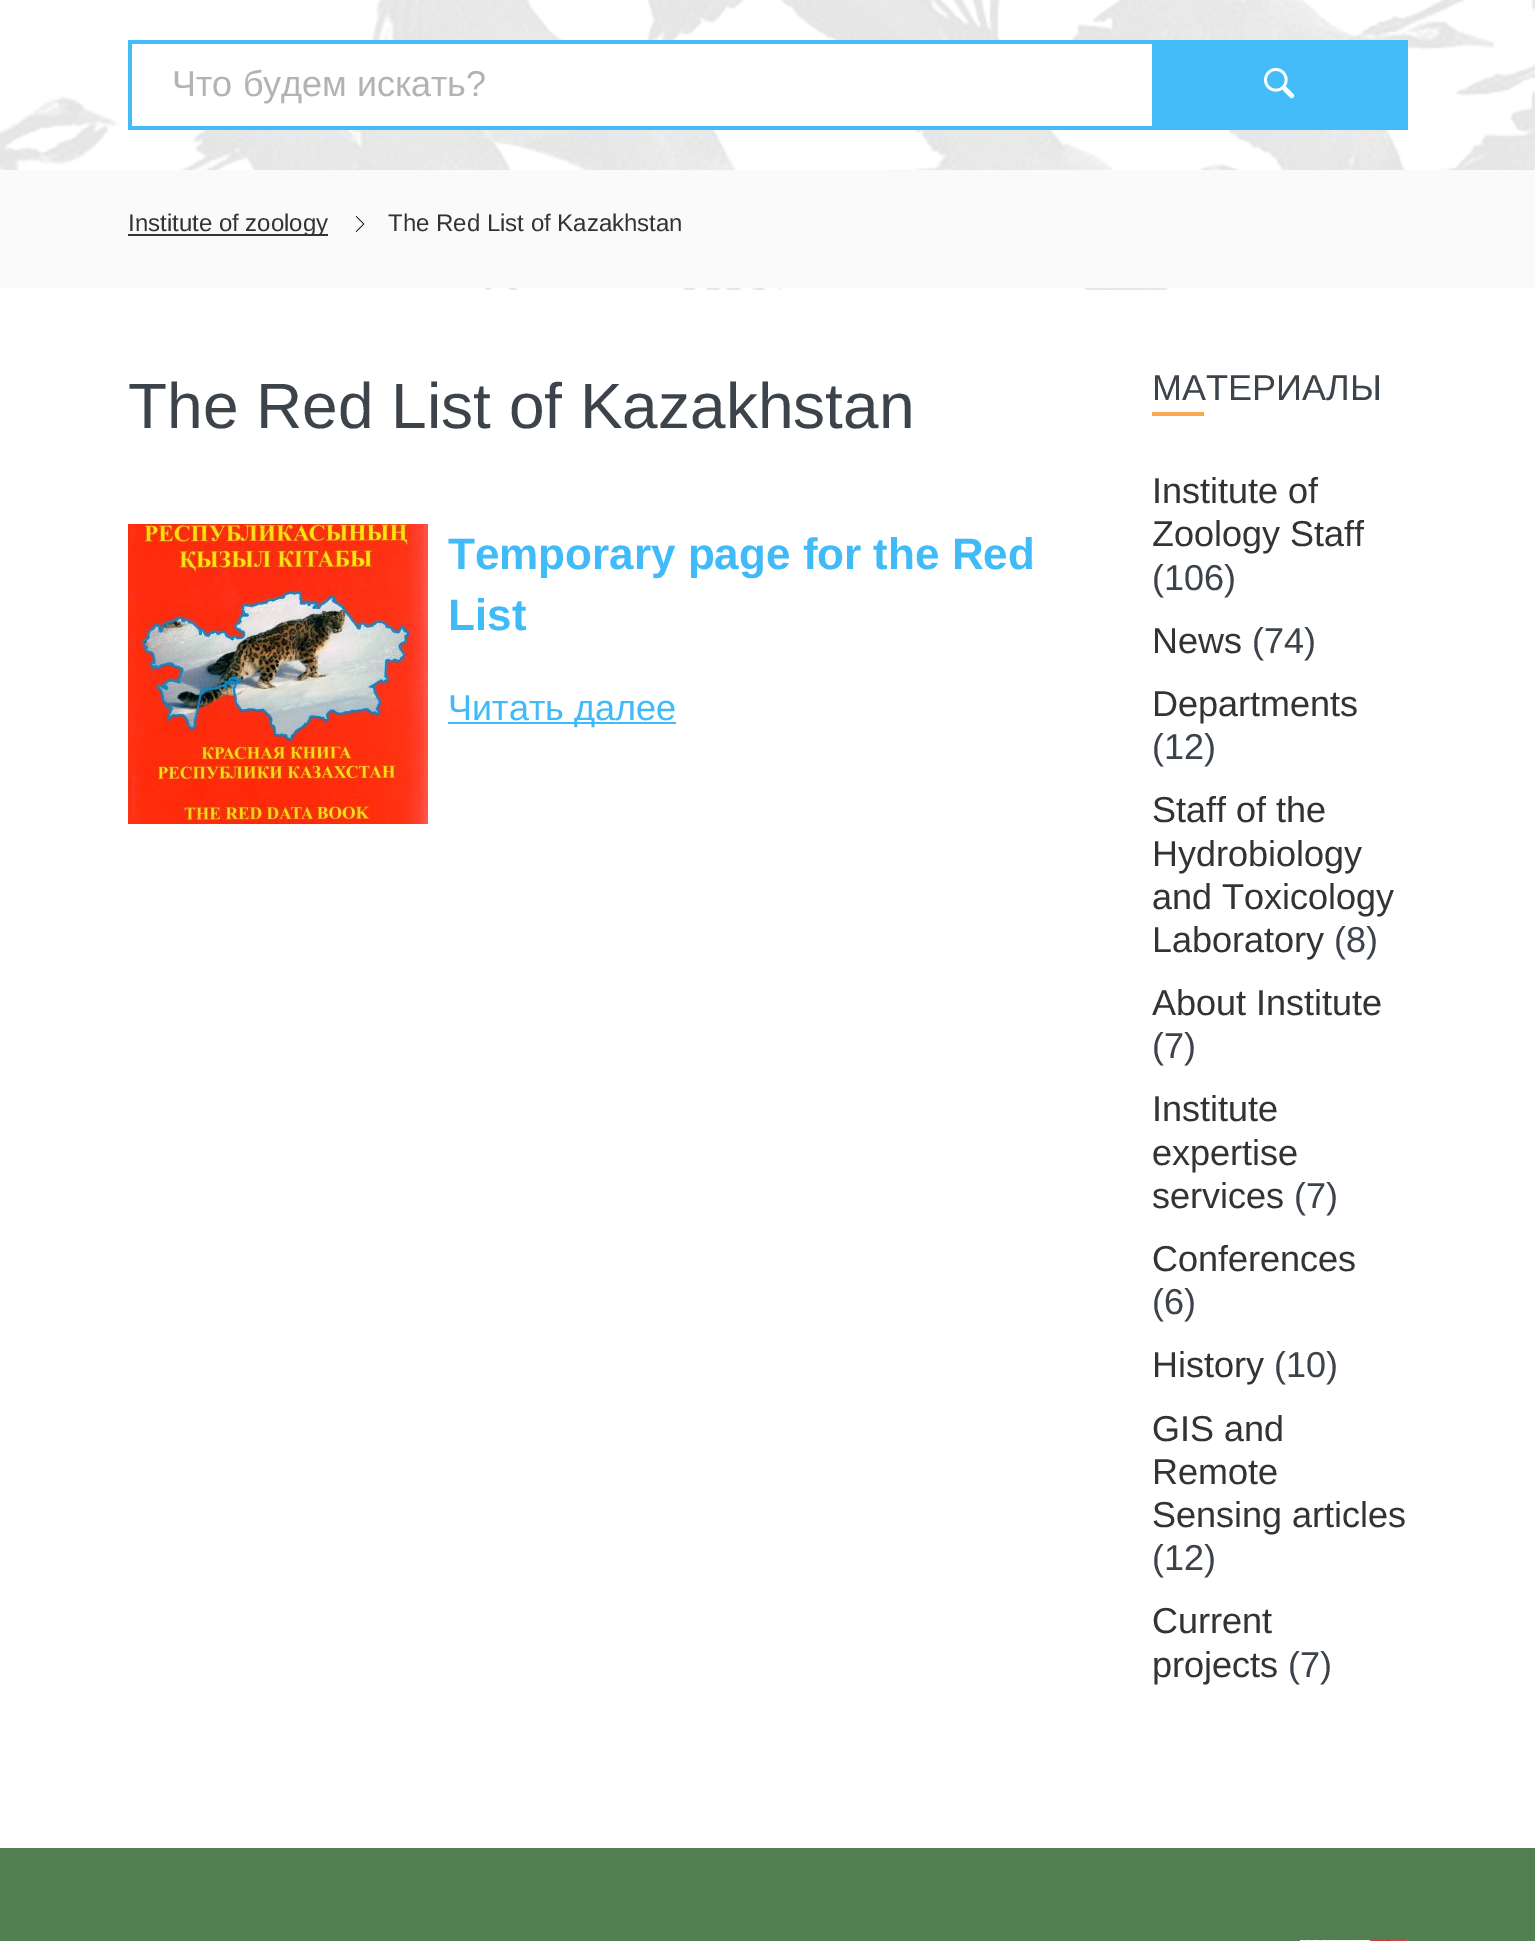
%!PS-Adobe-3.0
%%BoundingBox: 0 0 1535 1941
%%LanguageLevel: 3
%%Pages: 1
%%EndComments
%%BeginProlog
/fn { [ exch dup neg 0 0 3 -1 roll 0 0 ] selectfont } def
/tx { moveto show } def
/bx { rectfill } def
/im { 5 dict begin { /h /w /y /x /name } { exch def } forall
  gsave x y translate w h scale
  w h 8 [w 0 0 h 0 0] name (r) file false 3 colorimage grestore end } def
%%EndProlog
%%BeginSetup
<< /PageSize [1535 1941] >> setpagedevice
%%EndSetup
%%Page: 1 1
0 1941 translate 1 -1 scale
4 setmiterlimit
1 setgray
0 0 1535 1941 bx
(image0.raw) 0 0 1535 290 im
199 44 953 82 bx
0.267 0.737 0.973 setrgbcolor
128 40 1024 4 bx
128 126 1024 4 bx
128 40 4 90 bx
/LiberationSans-Regular 36 fn
0.702 setgray
(Что будем искать?) 172 96 tx
0.267 0.737 0.973 setrgbcolor
1152 40 256 90 bx
(image1.raw) 1264 68 31 31 im
0.98 setgray
0 170 1535 118 bx
0.2 setgray
128 234 200 2 bx
/LiberationSans-Regular 24 fn
(Institute of zoology) 128 231 tx
(image2.raw) 355 216 10 16 im
(The Red List of Kazakhstan) 388 231 tx
/LiberationSans-Regular 64 fn
0.235 0.263 0.294 setrgbcolor
(The Red List of Kazakhstan) 128 428 tx
(image3.raw) 128 524 300 300 im
/LiberationSans-Bold 44 fn
0.251 0.733 0.973 setrgbcolor
(Temporary page for the Red) 448 569 tx
(List) 448 630 tx
448 722 228 2 bx
/LiberationSans-Regular 36 fn
(Читать далее) 448 720 tx
0.235 0.263 0.294 setrgbcolor
(МАТЕРИАЛЫ) 1152 400 tx
1 0.651 0.325 setrgbcolor
1152 412 52 4 bx
0.2 setgray
(Institute of) 1152 503 tx
(Zoology Staff) 1152 546 tx
0.235 0.263 0.294 setrgbcolor
(\(106\)) 1152 590 tx
0.2 setgray
(News) 1152 653 tx
0.235 0.263 0.294 setrgbcolor
(\(74\)) 1252 653 tx
0.2 setgray
(Departments) 1152 716 tx
0.235 0.263 0.294 setrgbcolor
(\(12\)) 1152 759 tx
0.2 setgray
(Staff of the) 1152 822 tx
(Hydrobiology) 1152 866 tx
(and Toxicology) 1152 909 tx
(Laboratory) 1152 952 tx
0.235 0.263 0.294 setrgbcolor
(\(8\)) 1334 952 tx
0.2 setgray
(About Institute) 1152 1015 tx
0.235 0.263 0.294 setrgbcolor
(\(7\)) 1152 1058 tx
0.2 setgray
(Institute) 1152 1121 tx
(expertise) 1152 1165 tx
(services) 1152 1208 tx
0.235 0.263 0.294 setrgbcolor
(\(7\)) 1294 1208 tx
0.2 setgray
(Conferences) 1152 1271 tx
0.235 0.263 0.294 setrgbcolor
(\(6\)) 1152 1314 tx
0.2 setgray
(History) 1152 1377 tx
0.235 0.263 0.294 setrgbcolor
(\(10\)) 1274 1377 tx
0.2 setgray
(GIS and) 1152 1441 tx
(Remote) 1152 1484 tx
(Sensing articles) 1152 1527 tx
0.235 0.263 0.294 setrgbcolor
(\(12\)) 1152 1570 tx
0.2 setgray
(Current) 1152 1633 tx
(projects) 1152 1677 tx
0.235 0.263 0.294 setrgbcolor
(\(7\)) 1288 1677 tx
0.322 0.498 0.322 setrgbcolor
0 1848 1535 93 bx
(image4.raw) 1300 1940 108 1 im
showpage
%%EOF
